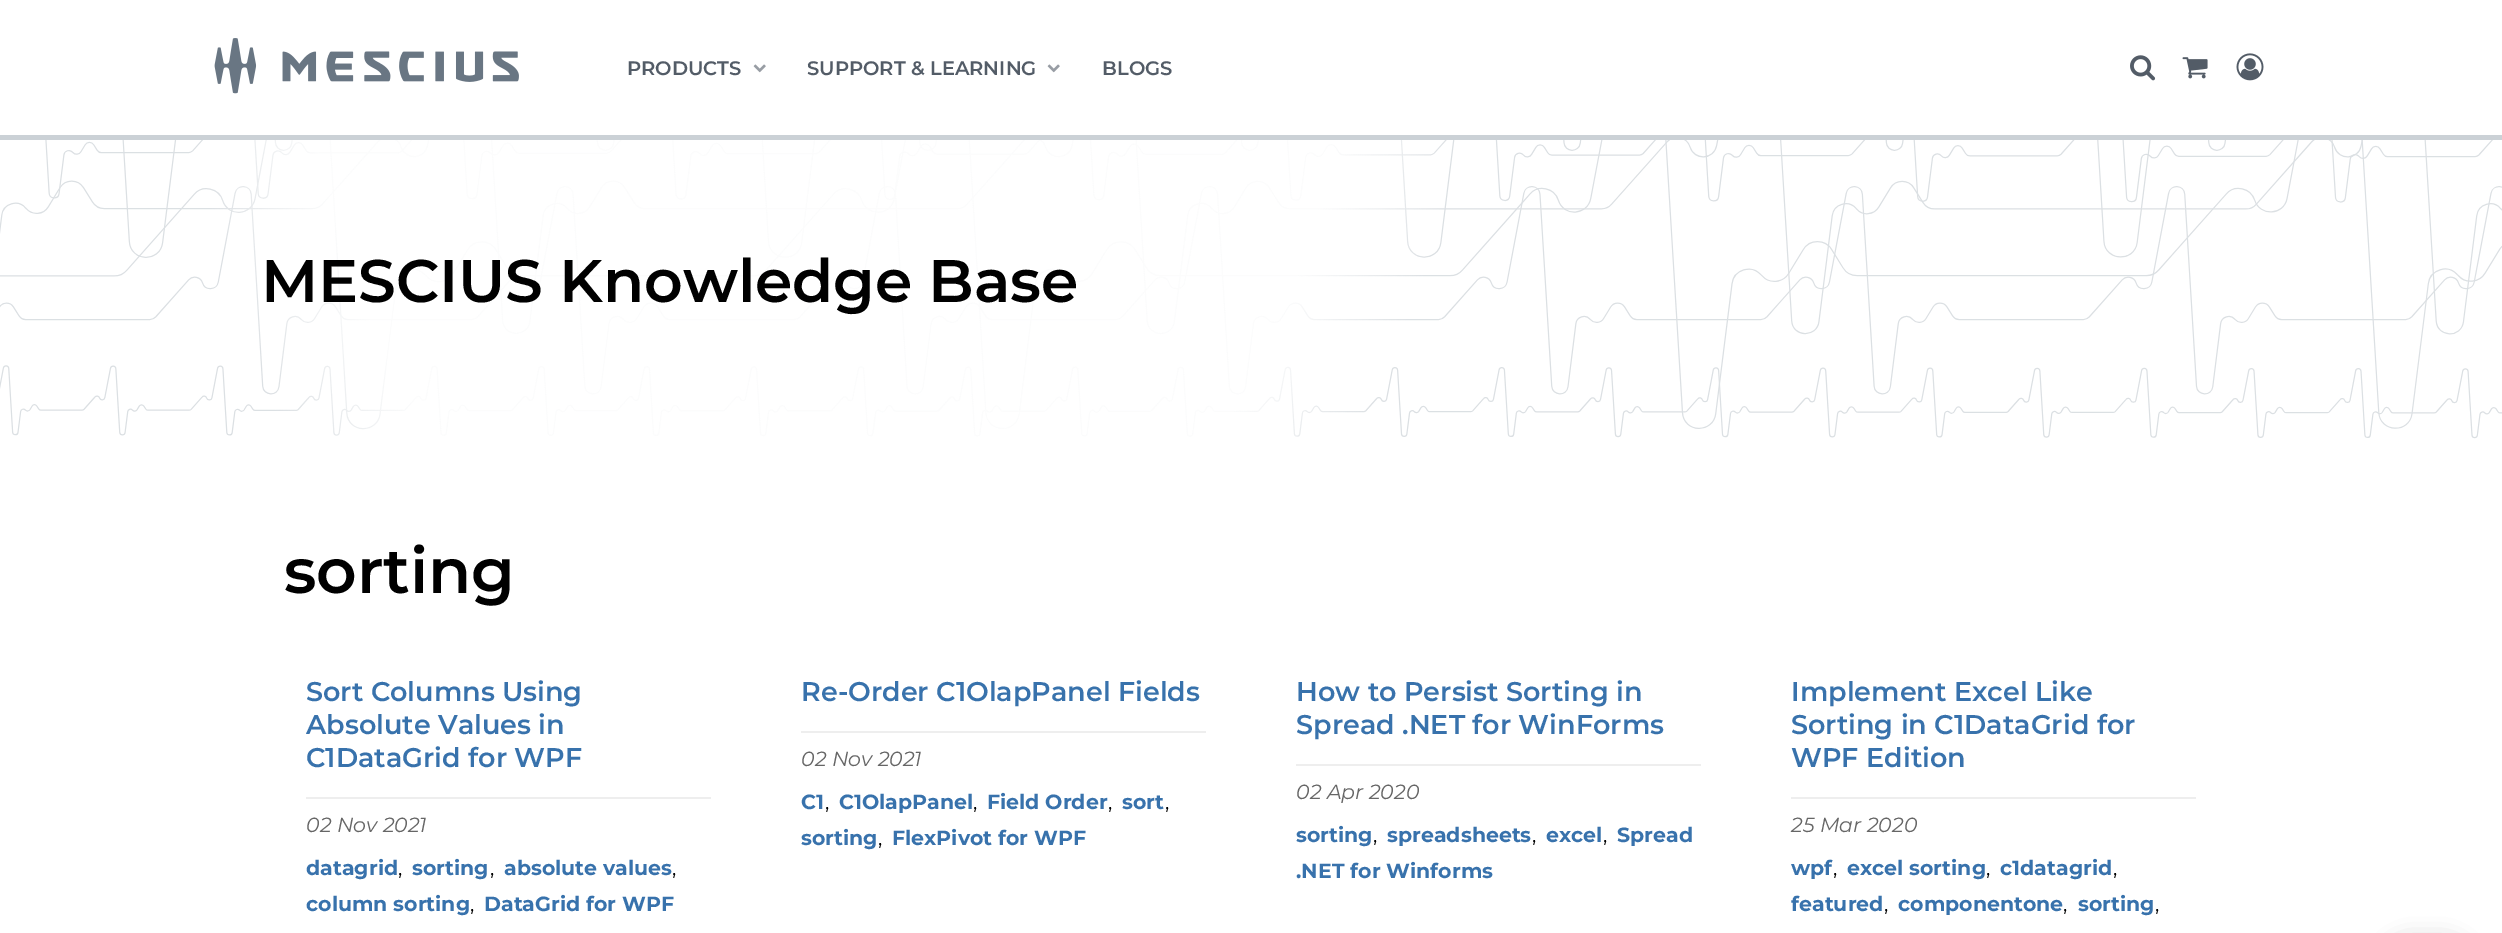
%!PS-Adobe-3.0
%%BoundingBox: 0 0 2502 933
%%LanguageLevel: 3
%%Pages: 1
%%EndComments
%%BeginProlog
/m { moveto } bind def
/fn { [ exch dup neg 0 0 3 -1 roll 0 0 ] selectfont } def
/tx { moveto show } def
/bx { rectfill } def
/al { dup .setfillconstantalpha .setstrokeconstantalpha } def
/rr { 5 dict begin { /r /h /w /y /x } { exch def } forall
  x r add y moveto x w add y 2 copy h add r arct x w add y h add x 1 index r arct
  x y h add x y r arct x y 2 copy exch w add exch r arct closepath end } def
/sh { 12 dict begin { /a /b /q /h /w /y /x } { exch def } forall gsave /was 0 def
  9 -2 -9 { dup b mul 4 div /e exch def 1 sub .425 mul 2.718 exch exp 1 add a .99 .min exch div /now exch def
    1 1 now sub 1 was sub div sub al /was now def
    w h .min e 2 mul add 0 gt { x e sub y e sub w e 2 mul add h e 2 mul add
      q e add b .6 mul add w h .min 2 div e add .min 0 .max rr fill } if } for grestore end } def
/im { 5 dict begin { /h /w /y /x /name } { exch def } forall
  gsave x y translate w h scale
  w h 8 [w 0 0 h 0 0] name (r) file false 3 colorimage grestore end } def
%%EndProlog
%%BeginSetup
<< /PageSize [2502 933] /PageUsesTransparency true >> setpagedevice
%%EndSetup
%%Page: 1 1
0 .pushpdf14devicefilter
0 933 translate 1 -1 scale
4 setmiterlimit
1 setgray
0 0 2502 933 bx
0.796 0.82 0.839 setrgbcolor
0 135 2502 5 bx
(image0.raw) 214 38 305 56 im
/Montserrat-SemiBold 19.5 fn
0.325 0.361 0.404 setrgbcolor
(PRODUCTS) 627 75 tx
(image1.raw) 753 64 13 9 im
(SUPPORT & LEARNING) 807 75 tx
(image1.raw) 1047 64 13 9 im
(BLOGS) 1102 75 tx
(image2.raw) 2130 55 26 26 im
(image3.raw) 2182 57 26 22 im
(image4.raw) 2236 53 28 28 im
(image5.raw) 0 140 2502 299 im
/Montserrat-SemiBold 60 fn
0 setgray
261 302 m -0.1 0 (MESCIUS Knowledge Base) ashow
/Montserrat-SemiBold 63 fn
284 593 m -0.1 0 (sorting) ashow
/Montserrat-SemiBold 27 fn
0.22 0.447 0.675 setrgbcolor
(Sort Columns Using) 306 701 tx
(Absolute Values in) 306 734 tx
(C1DataGrid for WPF) 306 767 tx
0.933 setgray
306 797 405 2 bx
/Montserrat-Italic 20.5 fn
0.4 setgray
(02 Nov 2021) 306 832 tx
/Montserrat-Bold 20.5 fn
0.22 0.447 0.675 setrgbcolor
(datagrid) 306 875 tx
/Montserrat-Regular 20.5 fn
0 setgray
(,) 398 875 tx
/Montserrat-Bold 20.5 fn
0.22 0.447 0.675 setrgbcolor
(sorting) 412 875 tx
/Montserrat-Regular 20.5 fn
0 setgray
(,) 490 875 tx
/Montserrat-Bold 20.5 fn
0.22 0.447 0.675 setrgbcolor
(absolute values) 504 875 tx
/Montserrat-Regular 20.5 fn
0 setgray
(,) 672 875 tx
/Montserrat-Bold 20.5 fn
0.22 0.447 0.675 setrgbcolor
(column sorting) 306 911 tx
/Montserrat-Regular 20.5 fn
0 setgray
(,) 470 911 tx
/Montserrat-Bold 20.5 fn
0.22 0.447 0.675 setrgbcolor
(DataGrid for WPF) 484 911 tx
/Montserrat-SemiBold 27 fn
(Re-Order C1OlapPanel Fields) 801 701 tx
0.933 setgray
801 731 405 2 bx
/Montserrat-Italic 20.5 fn
0.4 setgray
(02 Nov 2021) 801 766 tx
/Montserrat-Bold 20.5 fn
0.22 0.447 0.675 setrgbcolor
(C1) 801 809 tx
/Montserrat-Regular 20.5 fn
0 setgray
(,) 825 809 tx
/Montserrat-Bold 20.5 fn
0.22 0.447 0.675 setrgbcolor
(C1OlapPanel) 839 809 tx
/Montserrat-Regular 20.5 fn
0 setgray
(,) 973 809 tx
/Montserrat-Bold 20.5 fn
0.22 0.447 0.675 setrgbcolor
(Field Order) 987 809 tx
/Montserrat-Regular 20.5 fn
0 setgray
(,) 1108 809 tx
/Montserrat-Bold 20.5 fn
0.22 0.447 0.675 setrgbcolor
(sort) 1122 809 tx
/Montserrat-Regular 20.5 fn
0 setgray
(,) 1165 809 tx
/Montserrat-Bold 20.5 fn
0.22 0.447 0.675 setrgbcolor
(sorting) 801 845 tx
/Montserrat-Regular 20.5 fn
0 setgray
(,) 878 845 tx
/Montserrat-Bold 20.5 fn
0.22 0.447 0.675 setrgbcolor
(FlexPivot for WPF) 892 845 tx
/Montserrat-SemiBold 27 fn
(How to Persist Sorting in) 1296 701 tx
(Spread .NET for WinForms) 1296 734 tx
0.933 setgray
1296 764 405 2 bx
/Montserrat-Italic 20.5 fn
0.4 setgray
(02 Apr 2020) 1296 799 tx
/Montserrat-Bold 20.5 fn
0.22 0.447 0.675 setrgbcolor
(sorting) 1296 842 tx
/Montserrat-Regular 20.5 fn
0 setgray
(,) 1373 842 tx
/Montserrat-Bold 20.5 fn
0.22 0.447 0.675 setrgbcolor
(spreadsheets) 1387 842 tx
/Montserrat-Regular 20.5 fn
0 setgray
(,) 1532 842 tx
/Montserrat-Bold 20.5 fn
0.22 0.447 0.675 setrgbcolor
(excel) 1546 842 tx
/Montserrat-Regular 20.5 fn
0 setgray
(,) 1603 842 tx
/Montserrat-Bold 20.5 fn
0.22 0.447 0.675 setrgbcolor
(Spread) 1617 842 tx
(.NET for Winforms) 1296 878 tx
/Montserrat-SemiBold 27 fn
(Implement Excel Like) 1791 701 tx
(Sorting in C1DataGrid for) 1791 734 tx
(WPF Edition) 1791 767 tx
0.933 setgray
1791 797 405 2 bx
/Montserrat-Italic 20.5 fn
0.4 setgray
(25 Mar 2020) 1791 832 tx
/Montserrat-Bold 20.5 fn
0.22 0.447 0.675 setrgbcolor
(wpf) 1791 875 tx
/Montserrat-Regular 20.5 fn
0 setgray
(,) 1833 875 tx
/Montserrat-Bold 20.5 fn
0.22 0.447 0.675 setrgbcolor
(excel sorting) 1847 875 tx
/Montserrat-Regular 20.5 fn
0 setgray
(,) 1986 875 tx
/Montserrat-Bold 20.5 fn
0.22 0.447 0.675 setrgbcolor
(c1datagrid) 2000 875 tx
/Montserrat-Regular 20.5 fn
0 setgray
(,) 2113 875 tx
/Montserrat-Bold 20.5 fn
0.22 0.447 0.675 setrgbcolor
(featured) 1791 911 tx
/Montserrat-Regular 20.5 fn
0 setgray
(,) 1884 911 tx
/Montserrat-Bold 20.5 fn
0.22 0.447 0.675 setrgbcolor
(componentone) 1898 911 tx
/Montserrat-Regular 20.5 fn
0 setgray
(,) 2063 911 tx
/Montserrat-Bold 20.5 fn
0.22 0.447 0.675 setrgbcolor
(sorting) 2078 911 tx
/Montserrat-Regular 20.5 fn
0 setgray
(,) 2155 911 tx
2382 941 90 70 45 11 0.25 sh
.poppdf14devicefilter showpage
%%EOF
